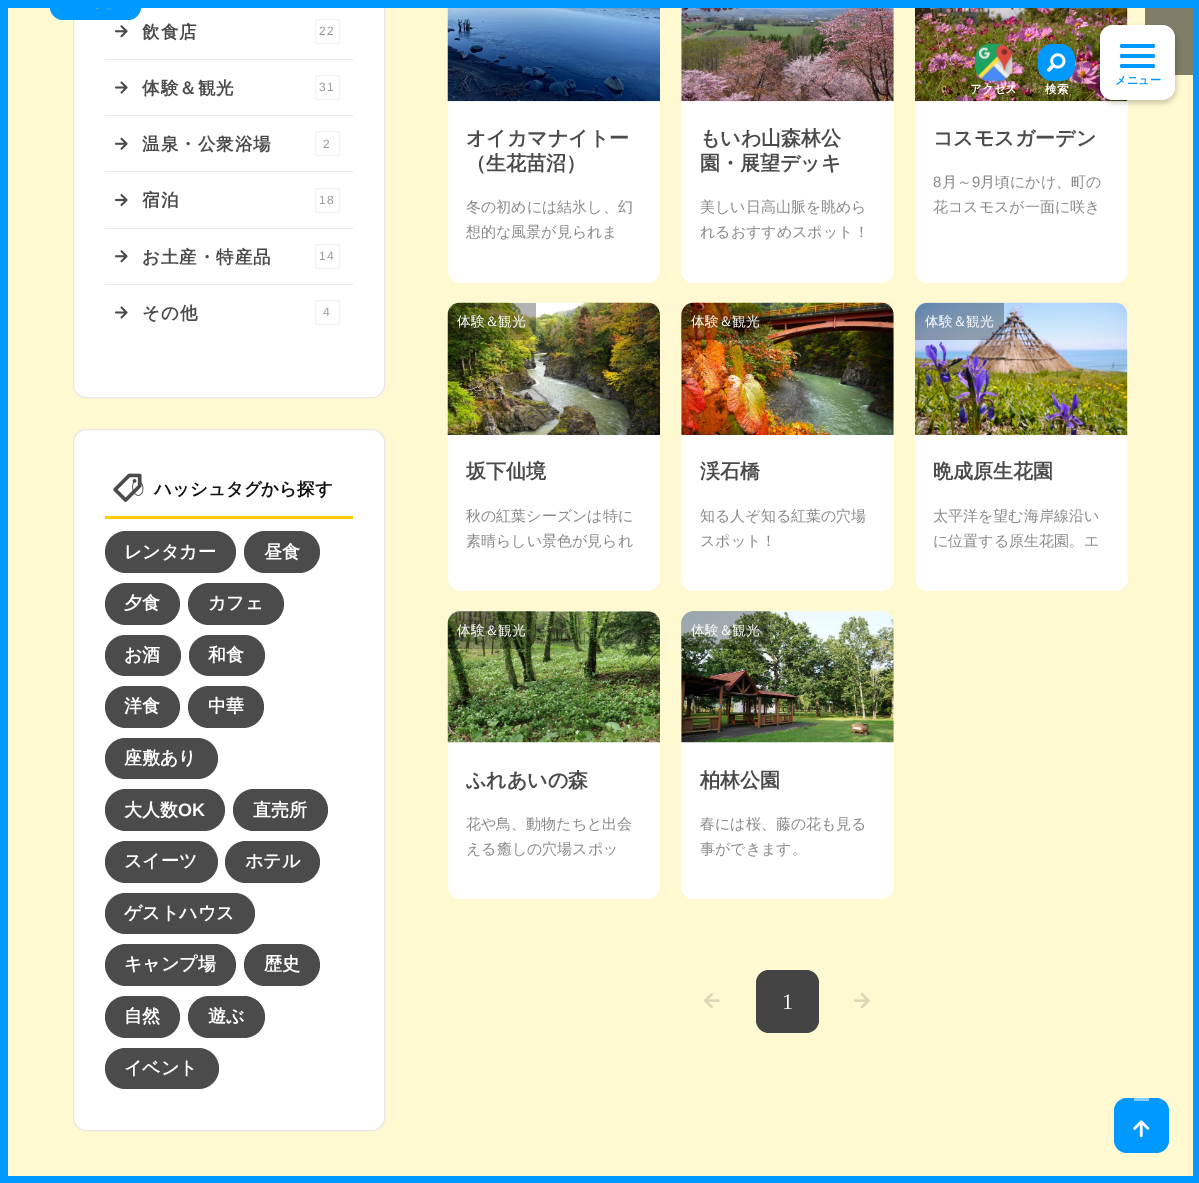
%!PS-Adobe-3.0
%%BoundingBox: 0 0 1199 1183
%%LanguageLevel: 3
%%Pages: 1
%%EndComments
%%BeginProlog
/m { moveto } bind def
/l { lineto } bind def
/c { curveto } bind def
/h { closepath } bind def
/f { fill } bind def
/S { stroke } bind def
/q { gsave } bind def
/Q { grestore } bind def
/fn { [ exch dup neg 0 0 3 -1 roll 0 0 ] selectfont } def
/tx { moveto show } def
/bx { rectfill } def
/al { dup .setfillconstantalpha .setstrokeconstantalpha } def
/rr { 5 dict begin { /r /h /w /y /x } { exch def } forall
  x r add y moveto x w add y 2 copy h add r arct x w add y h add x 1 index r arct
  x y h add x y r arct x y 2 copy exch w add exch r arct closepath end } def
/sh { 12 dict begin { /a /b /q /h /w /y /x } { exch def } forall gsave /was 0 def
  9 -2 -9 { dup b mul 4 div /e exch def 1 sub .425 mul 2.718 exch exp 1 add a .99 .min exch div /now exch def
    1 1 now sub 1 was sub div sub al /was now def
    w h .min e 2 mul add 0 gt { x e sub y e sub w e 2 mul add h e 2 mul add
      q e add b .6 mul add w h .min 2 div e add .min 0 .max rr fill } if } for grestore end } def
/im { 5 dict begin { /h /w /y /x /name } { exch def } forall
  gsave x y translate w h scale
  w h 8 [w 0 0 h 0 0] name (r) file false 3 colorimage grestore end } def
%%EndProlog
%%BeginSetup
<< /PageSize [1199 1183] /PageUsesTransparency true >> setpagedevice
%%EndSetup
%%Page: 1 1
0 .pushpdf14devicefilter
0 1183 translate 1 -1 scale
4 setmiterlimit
0.996 0.976 0.82 setrgbcolor
0 0 1199 1183 bx
0 0.6 1 setrgbcolor
0 0 8 1183 bx
1 setgray
73.5 -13.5 311 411 12.5 rr q f Q
0.902 setgray
S
0 0.6 1 setrgbcolor
50 -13 m 141 -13 l 141 7 l 141 14 135 20 128 20 c 63 20 l 56 20 50 14 50 7 c h f
(image0.raw) 96 8 17 3 im
1 setgray
448 -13 212 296 13 rr f
681 -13 213 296 13 rr f
915 -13 213 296 13 rr f
0 0.6 1 setrgbcolor
0 0 1199 8 bx
(image1.raw) 114 25 14 13 im
/WenQuanYiZenHei-Bold 17.5 fn
0.294 setgray
142 38 m 1 0 (飲食店) ashow
0.949 setgray
315.5 19.5 24 24 2 rr S
/LiberationSans-Regular 12 fn
0.6 setgray
319 35 m 1 0 (22) ashow
(image2.raw) 114 81 14 13 im
0.902 setgray
105 59 248 1 bx
/WenQuanYiZenHei-Bold 17.5 fn
0.294 setgray
142 94 m 1 0 (体験＆観光) ashow
0.949 setgray
315.5 75.5 24 24 2 rr S
/LiberationSans-Regular 12 fn
0.6 setgray
319 91 m 1 0 (31) ashow
(image3.raw) 114 137 14 13 im
0.902 setgray
105 115 248 1 bx
/WenQuanYiZenHei-Bold 17.5 fn
0.294 setgray
142 150 m 1 0 (温泉・公衆浴場) ashow
0.949 setgray
315.5 131.5 24 24 2 rr S
/LiberationSans-Regular 12 fn
0.6 setgray
323 148 m 1 0 (2) ashow
(image4.raw) 114 194 14 12 im
0.902 setgray
105 171 248 1 bx
/WenQuanYiZenHei-Bold 17.5 fn
0.294 setgray
142 206 m 1 0 (宿泊) ashow
0.949 setgray
315.5 188.5 24 24 2 rr S
/LiberationSans-Regular 12 fn
0.6 setgray
319 204 m 1 0 (18) ashow
(image1.raw) 114 250 14 13 im
0.902 setgray
105 228 248 1 bx
/WenQuanYiZenHei-Bold 17.5 fn
0.294 setgray
142 263 m 1 0 (お土産・特産品) ashow
0.949 setgray
315.5 244.5 24 24 2 rr S
/LiberationSans-Regular 12 fn
0.6 setgray
319 260 m 1 0 (14) ashow
(image2.raw) 114 306 14 13 im
0.902 setgray
105 284 248 1 bx
/WenQuanYiZenHei-Bold 17.5 fn
0.294 setgray
142 319 m 1 0 (その他) ashow
0.949 setgray
315.5 300.5 24 24 2 rr S
/LiberationSans-Regular 12 fn
0.6 setgray
323 316 m 1 0 (4) ashow
1 setgray
73.5 429.5 311 701 12.5 rr q f Q
0.902 setgray
S
1 0.8 0 setrgbcolor
105 516 248 3 bx
(image5.raw) 113 473 31 29 im
/WenQuanYiZenHei-Bold 17.5 fn
0.067 setgray
(ハッシュタグから探す) 154 495 tx
0.294 setgray
105 531 131 42 21 rr f
/WenQuanYiZenHei-Bold 18 fn
1 setgray
(レンタカー) 124 558 tx
0.294 setgray
244 531 76 42 21 rr f
1 setgray
(昼食) 264 558 tx
0.294 setgray
105 583 75 42 21 rr f
1 setgray
(夕食) 124 609 tx
0.294 setgray
188 583 96 42 21 rr f
1 setgray
(カフェ) 208 609 tx
0.294 setgray
105 635 76 41 20.5 rr f
1 setgray
(お酒) 124 661 tx
0.294 setgray
189 635 76 41 20.5 rr f
1 setgray
(和食) 208 661 tx
0.294 setgray
105 686 75 42 21 rr f
1 setgray
(洋食) 124 712 tx
0.294 setgray
188 686 76 42 21 rr f
1 setgray
(中華) 208 712 tx
0.294 setgray
105 738 113 41 20.5 rr f
1 setgray
(座敷あり) 124 764 tx
0.294 setgray
105 789 120 42 21 rr f
1 setgray
(大人数) 124 816 tx
/LiberationSans-Bold 18 fn
(OK) 178 816 tx
0.294 setgray
233 789 95 42 21 rr f
/WenQuanYiZenHei-Bold 18 fn
1 setgray
(直売所) 253 816 tx
0.294 setgray
105 841 113 42 21 rr f
1 setgray
(スイーツ) 124 867 tx
0.294 setgray
225 841 95 42 21 rr f
1 setgray
(ホテル) 245 867 tx
0.294 setgray
105 893 150 41 20.5 rr f
1 setgray
(ゲストハウス) 124 919 tx
0.294 setgray
105 944 131 42 21 rr f
1 setgray
(キャンプ場) 124 970 tx
0.294 setgray
244 944 76 42 21 rr f
1 setgray
(歴史) 264 970 tx
0.294 setgray
105 996 75 42 21 rr f
1 setgray
(自然) 124 1022 tx
0.294 setgray
188 996 77 42 21 rr f
1 setgray
(遊ぶ) 208 1022 tx
0.294 setgray
105 1048 114 41 20.5 rr f
1 setgray
(イベント) 124 1074 tx
(image6.raw) 447 8 213 94 im
/WenQuanYiZenHei-Bold 20 fn
0.294 setgray
(オイカマナイトー) 466 145 tx
(（生花苗沼）) 466 170 tx
/WenQuanYiZenHei-Medium 15 fn
0.533 setgray
(冬の初めには結氷し、幻) 466 212 tx
(想的な風景が見られま) 466 237 tx
(image7.raw) 681 8 213 94 im
/WenQuanYiZenHei-Bold 20 fn
0.294 setgray
(もいわ山森林公) 700 145 tx
(園・展望デッキ) 700 170 tx
/WenQuanYiZenHei-Medium 15 fn
0.533 setgray
(美しい日高山脈を眺めら) 700 212 tx
(れるおすすめスポット！) 700 237 tx
(image8.raw) 915 8 213 94 im
/WenQuanYiZenHei-Bold 20 fn
0.294 setgray
(コスモスガーデン) 933 145 tx
/LiberationSans-Regular 15 fn
0.533 setgray
(8) 933 187 tx
/WenQuanYiZenHei-Medium 15 fn
(月～) 942 187 tx
/LiberationSans-Regular 15 fn
(9) 972 187 tx
/WenQuanYiZenHei-Medium 15 fn
(月頃にかけ、町の) 980 187 tx
(花コスモスが一面に咲き) 933 212 tx
1 setgray
448 303 212 288 13 rr f
(image9.raw) 447 302 213 133 im
0.3 al
0 setgray
461 303 m 536 303 l 536 327 l 536 334 530 340 523 340 c 448 340 l 448 316 l 448 309 454 303 461 303 c h f
/WenQuanYiZenHei-Medium 13.75 fn
1 al
1 setgray
(体験＆観光) 457 326 tx
/WenQuanYiZenHei-Bold 20 fn
0.294 setgray
(坂下仙境) 466 478 tx
/WenQuanYiZenHei-Medium 15 fn
0.533 setgray
(秋の紅葉シーズンは特に) 466 521 tx
(素晴らしい景色が見られ) 466 546 tx
1 setgray
681 303 213 288 13 rr f
(image10.raw) 681 302 213 133 im
0.3 al
0 setgray
694 303 m 770 303 l 770 327 l 770 334 764 340 757 340 c 681 340 l 681 316 l 681 309 687 303 694 303 c h f
/WenQuanYiZenHei-Medium 13.75 fn
1 al
1 setgray
(体験＆観光) 691 326 tx
/WenQuanYiZenHei-Bold 20 fn
0.294 setgray
(渓石橋) 700 478 tx
/WenQuanYiZenHei-Medium 15 fn
0.533 setgray
(知る人ぞ知る紅葉の穴場) 700 521 tx
(スポット！) 700 546 tx
1 setgray
915 303 213 288 13 rr f
(image11.raw) 915 302 213 133 im
0.3 al
0 setgray
928 303 m 1004 303 l 1004 327 l 1004 334 998 340 991 340 c 915 340 l 915 316 l 915 309 921 303 928 303 c h f
/WenQuanYiZenHei-Medium 13.75 fn
1 al
1 setgray
(体験＆観光) 925 326 tx
/WenQuanYiZenHei-Bold 20 fn
0.294 setgray
(晩成原生花園) 933 478 tx
/WenQuanYiZenHei-Medium 15 fn
0.533 setgray
(太平洋を望む海岸線沿い) 933 521 tx
(に位置する原生花園。エ) 933 546 tx
1 setgray
448 611 212 288 13 rr f
(image12.raw) 447 611 213 132 im
0.3 al
0 setgray
461 611 m 536 611 l 536 636 l 536 643 530 649 523 649 c 448 649 l 448 624 l 448 617 454 611 461 611 c h f
/WenQuanYiZenHei-Medium 13.75 fn
1 al
1 setgray
(体験＆観光) 457 635 tx
/WenQuanYiZenHei-Bold 20 fn
0.294 setgray
(ふれあいの森) 466 787 tx
/WenQuanYiZenHei-Medium 15 fn
0.533 setgray
(花や鳥、動物たちと出会) 466 829 tx
(える癒しの穴場スポッ) 466 854 tx
1 setgray
681 611 213 288 13 rr f
(image13.raw) 681 611 213 132 im
0.3 al
0 setgray
694 611 m 770 611 l 770 636 l 770 643 764 649 757 649 c 681 649 l 681 624 l 681 617 687 611 694 611 c h f
/WenQuanYiZenHei-Medium 13.75 fn
1 al
1 setgray
(体験＆観光) 691 635 tx
/WenQuanYiZenHei-Bold 20 fn
0.294 setgray
(柏林公園) 700 787 tx
/WenQuanYiZenHei-Medium 15 fn
0.533 setgray
(春には桜、藤の花も見る) 700 829 tx
(事ができます。) 700 854 tx
(image14.raw) 704 993 16 16 im
0.267 setgray
756 970 63 63 13 rr f
/LiberationSerif-Regular 22 fn
1 setgray
(1) 782 1009 tx
(image15.raw) 854 993 16 16 im
0 0.6 1 setrgbcolor
0 1176 1199 7 bx
0.5 al
0 setgray
1145 8 48 67 bx
1 al
1101 28 75 75 13 2.5 0.2 sh
1 setgray
1100 25 75 75 13 rr f
0 0.6 1 setrgbcolor
1120 44 35 4 2 rr f
1120 54 35 4 2 rr f
1120 64 35 4 2 rr f
/WenQuanYiZenHei-Bold 11.25 fn
(メニュー) 1115 84 tx
1193 0 6 1183 bx
(image16.raw) 975 43 38 39 im
/WenQuanYiZenHei-Bold 11.5 fn
1 setgray
(アクセス) 970 93 tx
0 0.6 1 setrgbcolor
1038 44 37 37 15 rr f
1045 48 m 1069.5 73 l 1070 74 l 1069.5 74.5 1069 75 1068 75 c 1042.5 49.5 l 1042 48 1044 47 1045 48 c h f
(image17.raw) 1047 53 19 19 im
1 setgray
(検索) 1045 93 tx
0 0.6 1 setrgbcolor
1114 1098 55 55 13 rr f
(image18.raw) 1133 1120 17 18 im
0.502 0.8 1 setrgbcolor
1134 1098 15 3 bx
.poppdf14devicefilter showpage
%%EOF
